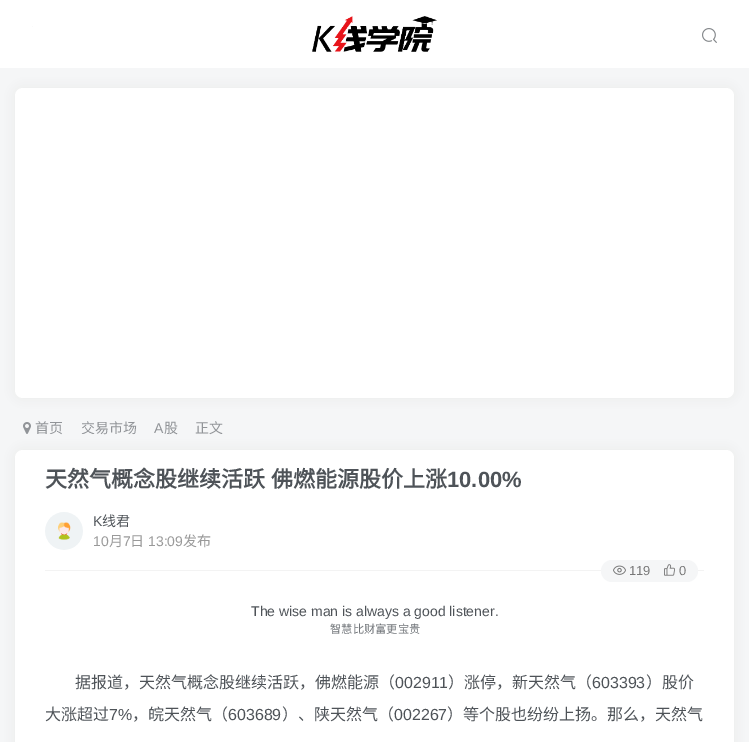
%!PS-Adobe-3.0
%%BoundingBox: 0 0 749 742
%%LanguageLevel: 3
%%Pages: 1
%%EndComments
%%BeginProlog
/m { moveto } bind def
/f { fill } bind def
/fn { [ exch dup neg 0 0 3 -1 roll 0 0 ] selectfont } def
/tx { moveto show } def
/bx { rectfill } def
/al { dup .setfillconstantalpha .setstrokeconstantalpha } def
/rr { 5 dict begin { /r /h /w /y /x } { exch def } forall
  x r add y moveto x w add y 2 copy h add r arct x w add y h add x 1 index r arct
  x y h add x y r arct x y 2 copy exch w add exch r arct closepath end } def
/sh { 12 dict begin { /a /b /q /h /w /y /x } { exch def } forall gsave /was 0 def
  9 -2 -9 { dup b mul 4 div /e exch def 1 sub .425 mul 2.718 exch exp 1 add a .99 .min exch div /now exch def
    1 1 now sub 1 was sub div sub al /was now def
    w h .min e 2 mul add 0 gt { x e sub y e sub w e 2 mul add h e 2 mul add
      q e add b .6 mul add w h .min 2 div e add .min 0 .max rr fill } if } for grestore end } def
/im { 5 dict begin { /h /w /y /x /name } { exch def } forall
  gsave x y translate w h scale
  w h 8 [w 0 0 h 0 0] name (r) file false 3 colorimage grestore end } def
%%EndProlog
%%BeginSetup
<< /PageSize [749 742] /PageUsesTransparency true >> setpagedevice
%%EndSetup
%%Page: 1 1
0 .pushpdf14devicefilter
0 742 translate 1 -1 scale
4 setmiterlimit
0.961 0.965 0.969 setrgbcolor
0 0 749 742 bx
1 setgray
0 0 749 68 bx
0.98 setgray
32 26 1 1 bx
(image0.raw) 312 16 125 36 im
(image1.raw) 702 28 15 15 im
0.455 setgray
15 88 719 310 8 5 0.08 sh
1 setgray
15 88 719 310 8 rr f
(image2.raw) 23 422 8 12 im
0.455 setgray
15 450 719 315 8 5 0.08 sh
/NotoSansCJKSC-Regular 14 fn
0.569 0.58 0.596 setrgbcolor
(首页) 35 433 tx
(交易市场) 81 433 tx
/LiberationSans-Regular 14 fn
(A) 154 433 tx
/NotoSansCJKSC-Regular 14 fn
(股) 164 433 tx
(正文) 195 433 tx
1 setgray
15 450 719 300 8 rr f
/NotoSansCJKSC-Bold 22 fn
0.306 0.325 0.345 setrgbcolor
45 487 m 1 0 32 (天然气概念股继续活跃 佛燃能源股价上涨) widthshow
/LiberationSans-Bold 22 fn
(10.00%) 447 487 tx
(image3.raw) 45 512 38 38 im
/LiberationSans-Regular 14 fn
(K) 93 526 tx
/NotoSansCJKSC-Regular 14 fn
(线君) 102 526 tx
/LiberationSans-Regular 14 fn
0.6 setgray
(10) 93 546 tx
/NotoSansCJKSC-Regular 14 fn
(月) 109 546 tx
/LiberationSans-Regular 14 fn
(7) 123 546 tx
/NotoSansCJKSC-Regular 14 fn
(日) 130 546 tx
/LiberationSans-Regular 14 fn
(13:09) 148 546 tx
/NotoSansCJKSC-Regular 14 fn
(发布) 183 546 tx
0.953 setgray
45 570 659 1 bx
0.961 0.965 0.969 setrgbcolor
601 560 97 22 11 rr f
(image4.raw) 613 565 13 10 im
/LiberationSans-Regular 13 fn
0.467 setgray
(119) 629 575 tx
(image5.raw) 664 564 11 12 im
(0) 679 575 tx
/LiberationSans-Regular 14 fn
0.306 0.325 0.345 setrgbcolor
(The wise man is always a good listener.) 251 616 tx
/NotoSansCJKSC-Regular 11.25 fn
0.443 0.459 0.475 setrgbcolor
(智慧比财富更宝贵) 330 633 tx
/NotoSansCJKSC-Regular 16 fn
0.306 0.325 0.345 setrgbcolor
(据报道，天然气概念股继续活跃，佛燃能源（) 75 688 tx
/LiberationSans-Regular 16 fn
(002911) 395 688 tx
/NotoSansCJKSC-Regular 16 fn
(）涨停，新天然气（) 448 688 tx
/LiberationSans-Regular 16 fn
(603393) 592 688 tx
/NotoSansCJKSC-Regular 16 fn
(）股价) 646 688 tx
(大涨超过) 45 720 tx
/LiberationSans-Regular 16 fn
(7%) 109 720 tx
/NotoSansCJKSC-Regular 16 fn
(，皖天然气（) 132 720 tx
/LiberationSans-Regular 16 fn
(603689) 228 720 tx
/NotoSansCJKSC-Regular 16 fn
(）、陕天然气（) 282 720 tx
/LiberationSans-Regular 16 fn
(002267) 394 720 tx
/NotoSansCJKSC-Regular 16 fn
(）等个股也纷纷上扬。那么，天然气) 447 720 tx
.poppdf14devicefilter showpage
%%EOF
